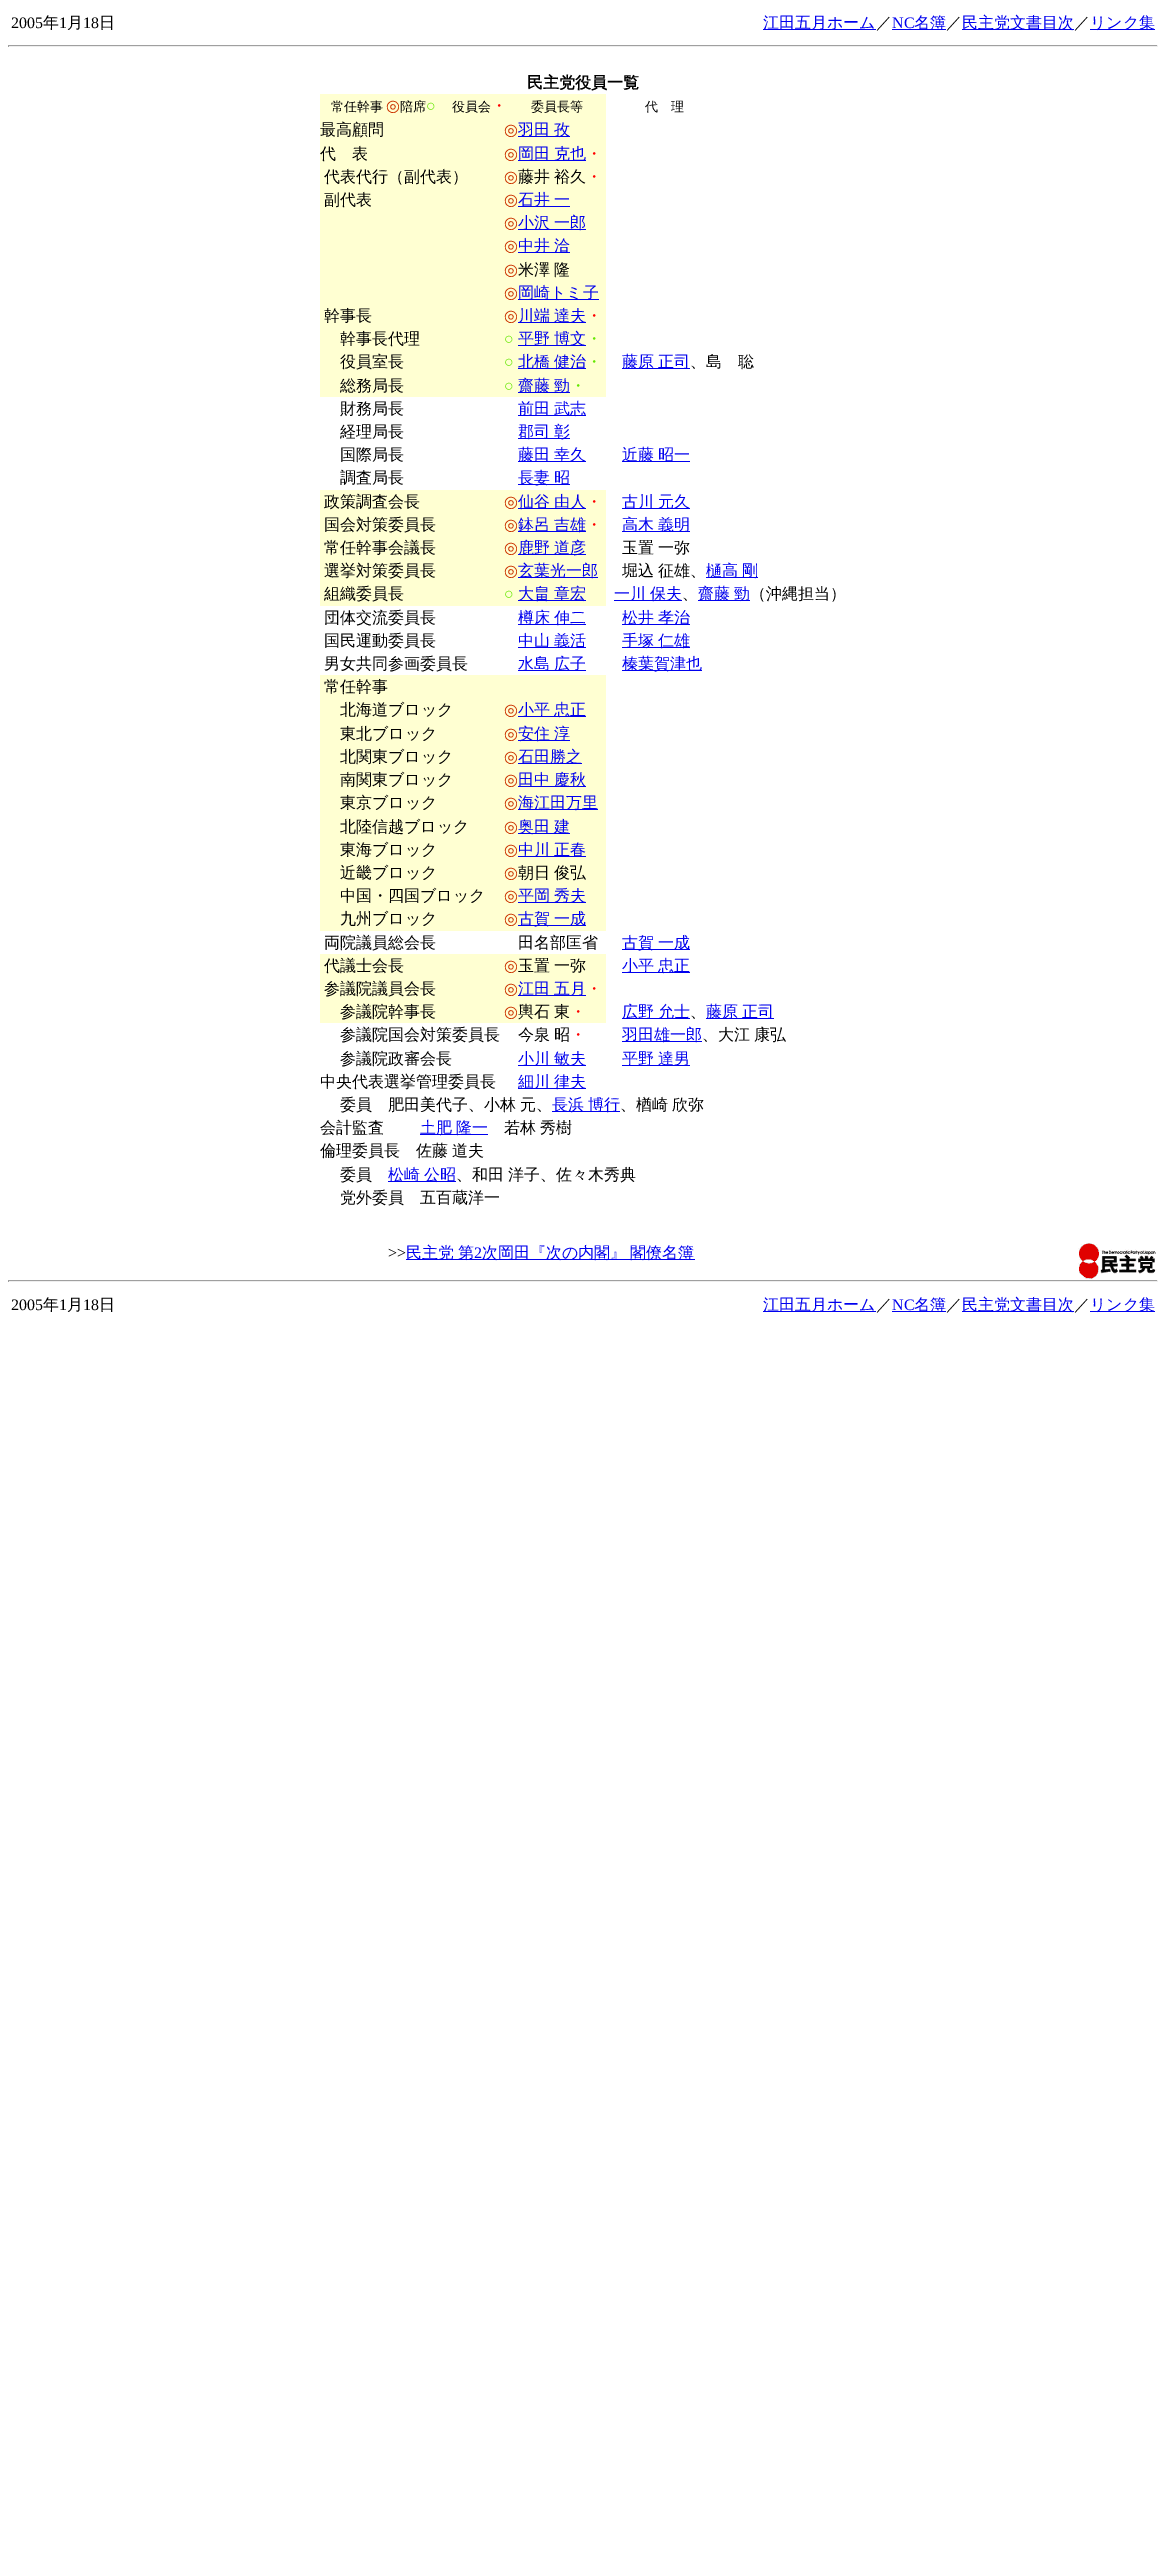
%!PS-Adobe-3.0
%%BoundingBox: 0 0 1166 2564
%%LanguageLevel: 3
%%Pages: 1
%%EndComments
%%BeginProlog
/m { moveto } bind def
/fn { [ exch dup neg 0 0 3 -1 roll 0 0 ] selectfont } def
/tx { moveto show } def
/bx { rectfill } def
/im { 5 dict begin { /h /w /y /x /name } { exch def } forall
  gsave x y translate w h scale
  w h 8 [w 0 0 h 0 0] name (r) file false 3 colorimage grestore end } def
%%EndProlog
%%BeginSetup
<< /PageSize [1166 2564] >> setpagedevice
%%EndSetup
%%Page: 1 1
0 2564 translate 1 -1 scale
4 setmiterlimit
1 setgray
0 0 1166 2564 bx
/LiberationSerif-Regular 16 fn
0 setgray
(2005) 11 28 tx
/WenQuanYiZenHei-Medium 16 fn
(年) 43 28 tx
/LiberationSerif-Regular 16 fn
(1) 59 28 tx
/WenQuanYiZenHei-Medium 16 fn
(月) 67 28 tx
/LiberationSerif-Regular 16 fn
(18) 83 28 tx
/WenQuanYiZenHei-Medium 16 fn
(日) 99 28 tx
0 0 0.933 setrgbcolor
763 29 113 1 bx
(江田五月ホーム) 763 28 tx
0 setgray
(／) 876 28 tx
/LiberationSerif-Regular 16 fn
0 0 0.933 setrgbcolor
(NC) 892 28 tx
892 29 54 1 bx
/WenQuanYiZenHei-Medium 16 fn
(名簿) 914 28 tx
0 setgray
(／) 946 28 tx
0 0 0.933 setrgbcolor
962 29 112 1 bx
(民主党文書目次) 962 28 tx
0 setgray
(／) 1074 28 tx
0 0 0.933 setrgbcolor
1090 29 65 1 bx
(リンク集) 1090 28 tx
0.624 setgray
8 45 1150 1 bx
0.933 setgray
1157 45 1 2 bx
8 46 1150 1 bx
0.624 setgray
8 45 1 2 bx
/WenQuanYiZenHei-Bold 16 fn
0 setgray
(民主党役員一覧) 527 88 tx
1 1 0.824 setrgbcolor
320 94 286 24 bx
/WenQuanYiZenHei-Medium 13 fn
0 setgray
(常任幹事) 331 111 tx
/DejaVuSans-Regular 16 fn
0.8 0.2 0 setrgbcolor
(◎) 386 111 tx
/WenQuanYiZenHei-Medium 13 fn
0 setgray
(陪席) 400 111 tx
/LiberationSerif-Regular 16 fn
0.392 0.91 0.008 setrgbcolor
(○) 426 111 tx
/WenQuanYiZenHei-Medium 13 fn
0 setgray
(役員会) 452 111 tx
/WenQuanYiZenHei-Medium 16 fn
1 0 0 setrgbcolor
(・) 491 111 tx
/WenQuanYiZenHei-Medium 13 fn
0 setgray
(委員長等) 531 111 tx
(代　理) 645 111 tx
1 1 0.824 setrgbcolor
320 118 286 186 bx
/WenQuanYiZenHei-Medium 16 fn
0 setgray
(最高顧問) 320 135 tx
(代　表) 320 159 tx
(代表代行（副代表）) 324 182 tx
(副代表) 324 205 tx
/DejaVuSans-Regular 16 fn
0.8 0.2 0 setrgbcolor
(◎) 504 135 tx
(◎) 504 159 tx
(◎) 504 182 tx
(◎) 504 205 tx
(◎) 504 228 tx
(◎) 504 251 tx
(◎) 504 275 tx
(◎) 504 298 tx
0 0 0.933 setrgbcolor
518 136 52 1 bx
/WenQuanYiZenHei-Medium 16 fn
518 135 m -1 0 32 (羽田 孜) widthshow
518 160 68 1 bx
518 159 m -1 0 32 (岡田 克也) widthshow
1 0 0 setrgbcolor
(・) 586 159 tx
0 setgray
518 182 m -1 0 32 (藤井 裕久) widthshow
1 0 0 setrgbcolor
(・) 586 182 tx
0 0 0.933 setrgbcolor
518 206 52 1 bx
518 205 m -1 0 32 (石井 一) widthshow
518 229 68 1 bx
518 228 m -1 0 32 (小沢 一郎) widthshow
518 252 52 1 bx
518 251 m -1 0 32 (中井 洽) widthshow
0 setgray
518 275 m -1 0 32 (米澤 隆) widthshow
0 0 0.933 setrgbcolor
518 299 81 1 bx
(岡崎トミ子) 518 298 tx
1 1 0.824 setrgbcolor
320 304 286 23 bx
0 setgray
(幹事長) 324 321 tx
/DejaVuSans-Regular 16 fn
0.8 0.2 0 setrgbcolor
(◎) 504 321 tx
0 0 0.933 setrgbcolor
518 322 68 1 bx
/WenQuanYiZenHei-Medium 16 fn
518 321 m -1 0 32 (川端 達夫) widthshow
1 0 0 setrgbcolor
(・) 586 321 tx
1 1 0.824 setrgbcolor
320 327 286 70 bx
0 setgray
(幹事長代理) 340 344 tx
(役員室長) 340 367 tx
(総務局長) 340 391 tx
/LiberationSerif-Regular 16 fn
0.392 0.91 0.008 setrgbcolor
(○) 504 344 tx
(○) 504 367 tx
(○) 504 391 tx
0 0 0.933 setrgbcolor
518 345 68 1 bx
/WenQuanYiZenHei-Medium 16 fn
518 344 m -1 0 32 (平野 博文) widthshow
0.392 0.91 0.008 setrgbcolor
(・) 586 344 tx
0 0 0.933 setrgbcolor
518 368 68 1 bx
518 367 m -1 0 32 (北橋 健治) widthshow
0.392 0.91 0.008 setrgbcolor
(・) 586 367 tx
0 0 0.933 setrgbcolor
518 392 52 1 bx
518 391 m -1 0 32 (齋藤 勁) widthshow
0.392 0.91 0.008 setrgbcolor
(・) 570 391 tx
0 0 0.933 setrgbcolor
622 368 68 1 bx
622 367 m -1 0 32 (藤原 正司) widthshow
0 setgray
(、島　聡) 690 367 tx
(財務局長) 340 414 tx
(経理局長) 340 437 tx
(国際局長) 340 460 tx
(調査局長) 340 483 tx
0 0 0.933 setrgbcolor
518 415 68 1 bx
518 414 m -1 0 32 (前田 武志) widthshow
518 438 52 1 bx
518 437 m -1 0 32 (郡司 彰) widthshow
518 461 68 1 bx
518 460 m -1 0 32 (藤田 幸久) widthshow
518 484 52 1 bx
518 483 m -1 0 32 (長妻 昭) widthshow
622 461 68 1 bx
622 460 m -1 0 32 (近藤 昭一) widthshow
1 1 0.824 setrgbcolor
320 490 286 116 bx
0 setgray
(政策調査会長) 324 507 tx
(国会対策委員長) 324 530 tx
(常任幹事会議長) 324 553 tx
(選挙対策委員長) 324 576 tx
(組織委員長) 324 599 tx
/DejaVuSans-Regular 16 fn
0.8 0.2 0 setrgbcolor
(◎) 504 507 tx
(◎) 504 530 tx
(◎) 504 553 tx
(◎) 504 576 tx
/LiberationSerif-Regular 16 fn
0.392 0.91 0.008 setrgbcolor
(○) 504 599 tx
0 0 0.933 setrgbcolor
518 508 68 1 bx
/WenQuanYiZenHei-Medium 16 fn
518 507 m -1 0 32 (仙谷 由人) widthshow
1 0 0 setrgbcolor
(・) 586 507 tx
0 0 0.933 setrgbcolor
518 531 68 1 bx
518 530 m -1 0 32 (鉢呂 吉雄) widthshow
1 0 0 setrgbcolor
(・) 586 530 tx
0 0 0.933 setrgbcolor
518 554 68 1 bx
518 553 m -1 0 32 (鹿野 道彦) widthshow
518 577 80 1 bx
(玄葉光一郎) 518 576 tx
518 600 68 1 bx
518 599 m -1 0 32 (大畠 章宏) widthshow
622 508 68 1 bx
622 507 m -1 0 32 (古川 元久) widthshow
622 531 68 1 bx
622 530 m -1 0 32 (高木 義明) widthshow
0 setgray
622 553 m -1 0 32 (玉置 一弥) widthshow
622 576 m -1 0 32 (堀込 征雄、) widthshow
0 0 0.933 setrgbcolor
706 577 52 1 bx
706 576 m -1 0 32 (樋高 剛) widthshow
614 600 68 1 bx
614 599 m -1 0 32 (一川 保夫) widthshow
0 setgray
(、) 682 599 tx
0 0 0.933 setrgbcolor
698 600 52 1 bx
698 599 m -1 0 32 (齋藤 勁) widthshow
0 setgray
(（沖縄担当）) 750 599 tx
(団体交流委員長) 324 623 tx
(国民運動委員長) 324 646 tx
(男女共同参画委員長) 324 669 tx
0 0 0.933 setrgbcolor
518 624 68 1 bx
518 623 m -1 0 32 (樽床 伸二) widthshow
518 647 68 1 bx
518 646 m -1 0 32 (中山 義活) widthshow
518 670 68 1 bx
518 669 m -1 0 32 (水島 広子) widthshow
622 624 68 1 bx
622 623 m -1 0 32 (松井 孝治) widthshow
622 647 68 1 bx
622 646 m -1 0 32 (手塚 仁雄) widthshow
622 670 80 1 bx
(榛葉賀津也) 622 669 tx
1 1 0.824 setrgbcolor
320 675 286 23 bx
0 setgray
(常任幹事) 324 692 tx
1 1 0.824 setrgbcolor
320 698 286 233 bx
0 setgray
(北海道ブロック) 340 715 tx
(東北ブロック) 340 739 tx
(北関東ブロック) 340 762 tx
(南関東ブロック) 340 785 tx
(東京ブロック) 340 808 tx
(北陸信越ブロック) 340 832 tx
(東海ブロック) 340 855 tx
(近畿ブロック) 340 878 tx
(中国・四国ブロック) 340 901 tx
(九州ブロック) 340 924 tx
/DejaVuSans-Regular 16 fn
0.8 0.2 0 setrgbcolor
(◎) 504 715 tx
(◎) 504 739 tx
(◎) 504 762 tx
(◎) 504 785 tx
(◎) 504 808 tx
(◎) 504 832 tx
(◎) 504 855 tx
(◎) 504 878 tx
(◎) 504 901 tx
(◎) 504 924 tx
0 0 0.933 setrgbcolor
518 716 68 1 bx
/WenQuanYiZenHei-Medium 16 fn
518 715 m -1 0 32 (小平 忠正) widthshow
518 740 52 1 bx
518 739 m -1 0 32 (安住 淳) widthshow
518 763 64 1 bx
(石田勝之) 518 762 tx
518 786 68 1 bx
518 785 m -1 0 32 (田中 慶秋) widthshow
518 809 80 1 bx
(海江田万里) 518 808 tx
518 833 52 1 bx
518 832 m -1 0 32 (奥田 建) widthshow
518 856 68 1 bx
518 855 m -1 0 32 (中川 正春) widthshow
0 setgray
518 878 m -1 0 32 (朝日 俊弘) widthshow
0 0 0.933 setrgbcolor
518 902 68 1 bx
518 901 m -1 0 32 (平岡 秀夫) widthshow
518 925 68 1 bx
518 924 m -1 0 32 (古賀 一成) widthshow
0 setgray
(両院議員総会長) 324 948 tx
(田名部匡省) 518 948 tx
0 0 0.933 setrgbcolor
622 949 68 1 bx
622 948 m -1 0 32 (古賀 一成) widthshow
1 1 0.824 setrgbcolor
320 954 286 69 bx
0 setgray
(代議士会長) 324 971 tx
(参議院議員会長) 324 994 tx
(参議院幹事長) 340 1017 tx
/DejaVuSans-Regular 16 fn
0.8 0.2 0 setrgbcolor
(◎) 504 971 tx
(◎) 504 994 tx
(◎) 504 1017 tx
/WenQuanYiZenHei-Medium 16 fn
0 setgray
518 971 m -1 0 32 (玉置 一弥) widthshow
0 0 0.933 setrgbcolor
518 995 68 1 bx
518 994 m -1 0 32 (江田 五月) widthshow
1 0 0 setrgbcolor
(・) 586 994 tx
0 setgray
518 1017 m -1 0 32 (輿石 東) widthshow
1 0 0 setrgbcolor
(・) 570 1017 tx
0 0 0.933 setrgbcolor
622 972 68 1 bx
622 971 m -1 0 32 (小平 忠正) widthshow
622 1018 68 1 bx
622 1017 m -1 0 32 (広野 允士) widthshow
0 setgray
(、) 690 1017 tx
0 0 0.933 setrgbcolor
706 1018 68 1 bx
706 1017 m -1 0 32 (藤原 正司) widthshow
0 setgray
(参議院国会対策委員長) 340 1040 tx
(参議院政審会長) 340 1064 tx
518 1040 m -1 0 32 (今泉 昭) widthshow
1 0 0 setrgbcolor
(・) 570 1040 tx
0 0 0.933 setrgbcolor
518 1065 68 1 bx
518 1064 m -1 0 32 (小川 敏夫) widthshow
622 1041 80 1 bx
(羽田雄一郎) 622 1040 tx
0 setgray
702 1040 m -1 0 32 (、大江 康弘) widthshow
0 0 0.933 setrgbcolor
622 1065 68 1 bx
622 1064 m -1 0 32 (平野 達男) widthshow
0 setgray
(中央代表選挙管理委員長) 320 1087 tx
0 0 0.933 setrgbcolor
518 1088 68 1 bx
518 1087 m -1 0 32 (細川 律夫) widthshow
0 setgray
340 1110 m -1 0 32 (委員　肥田美代子、小林 元、) widthshow
0 0 0.933 setrgbcolor
552 1111 68 1 bx
552 1110 m -1 0 32 (長浜 博行) widthshow
0 setgray
620 1110 m -1 0 32 (、楢崎 欣弥) widthshow
(会計監査) 320 1133 tx
0 0 0.933 setrgbcolor
420 1134 68 1 bx
420 1133 m -1 0 32 (土肥 隆一) widthshow
0 setgray
504 1133 m -1 0 32 (若林 秀樹) widthshow
320 1156 m -1 0 32 (倫理委員長　佐藤 道夫) widthshow
(委員) 340 1180 tx
0 0 0.933 setrgbcolor
388 1181 68 1 bx
388 1180 m -1 0 32 (松崎 公昭) widthshow
0 setgray
456 1180 m -1 0 32 (、和田 洋子、佐々木秀典) widthshow
(党外委員　五百蔵洋一) 340 1203 tx
/LiberationSerif-Regular 16 fn
(>>) 388 1258 tx
0 0 0.933 setrgbcolor
406 1259 289 1 bx
/WenQuanYiZenHei-Medium 16 fn
406 1258 m -1 0 32 (民主党 第) widthshow
/LiberationSerif-Regular 16 fn
(2) 474 1258 tx
/WenQuanYiZenHei-Medium 16 fn
482 1258 m -1 0 32 (次岡田『次の内閣』 閣僚名簿) widthshow
(image0.raw) 1078 1243 79 36 im
0.624 setgray
8 1280 1150 1 bx
0.933 setgray
1157 1280 1 2 bx
8 1281 1150 1 bx
0.624 setgray
8 1280 1 2 bx
/LiberationSerif-Regular 16 fn
0 setgray
(2005) 11 1310 tx
/WenQuanYiZenHei-Medium 16 fn
(年) 43 1310 tx
/LiberationSerif-Regular 16 fn
(1) 59 1310 tx
/WenQuanYiZenHei-Medium 16 fn
(月) 67 1310 tx
/LiberationSerif-Regular 16 fn
(18) 83 1310 tx
/WenQuanYiZenHei-Medium 16 fn
(日) 99 1310 tx
0 0 0.933 setrgbcolor
763 1311 113 1 bx
(江田五月ホーム) 763 1310 tx
0 setgray
(／) 876 1310 tx
/LiberationSerif-Regular 16 fn
0 0 0.933 setrgbcolor
(NC) 892 1310 tx
892 1311 54 1 bx
/WenQuanYiZenHei-Medium 16 fn
(名簿) 914 1310 tx
0 setgray
(／) 946 1310 tx
0 0 0.933 setrgbcolor
962 1311 112 1 bx
(民主党文書目次) 962 1310 tx
0 setgray
(／) 1074 1310 tx
0 0 0.933 setrgbcolor
1090 1311 65 1 bx
(リンク集) 1090 1310 tx
showpage
%%EOF
